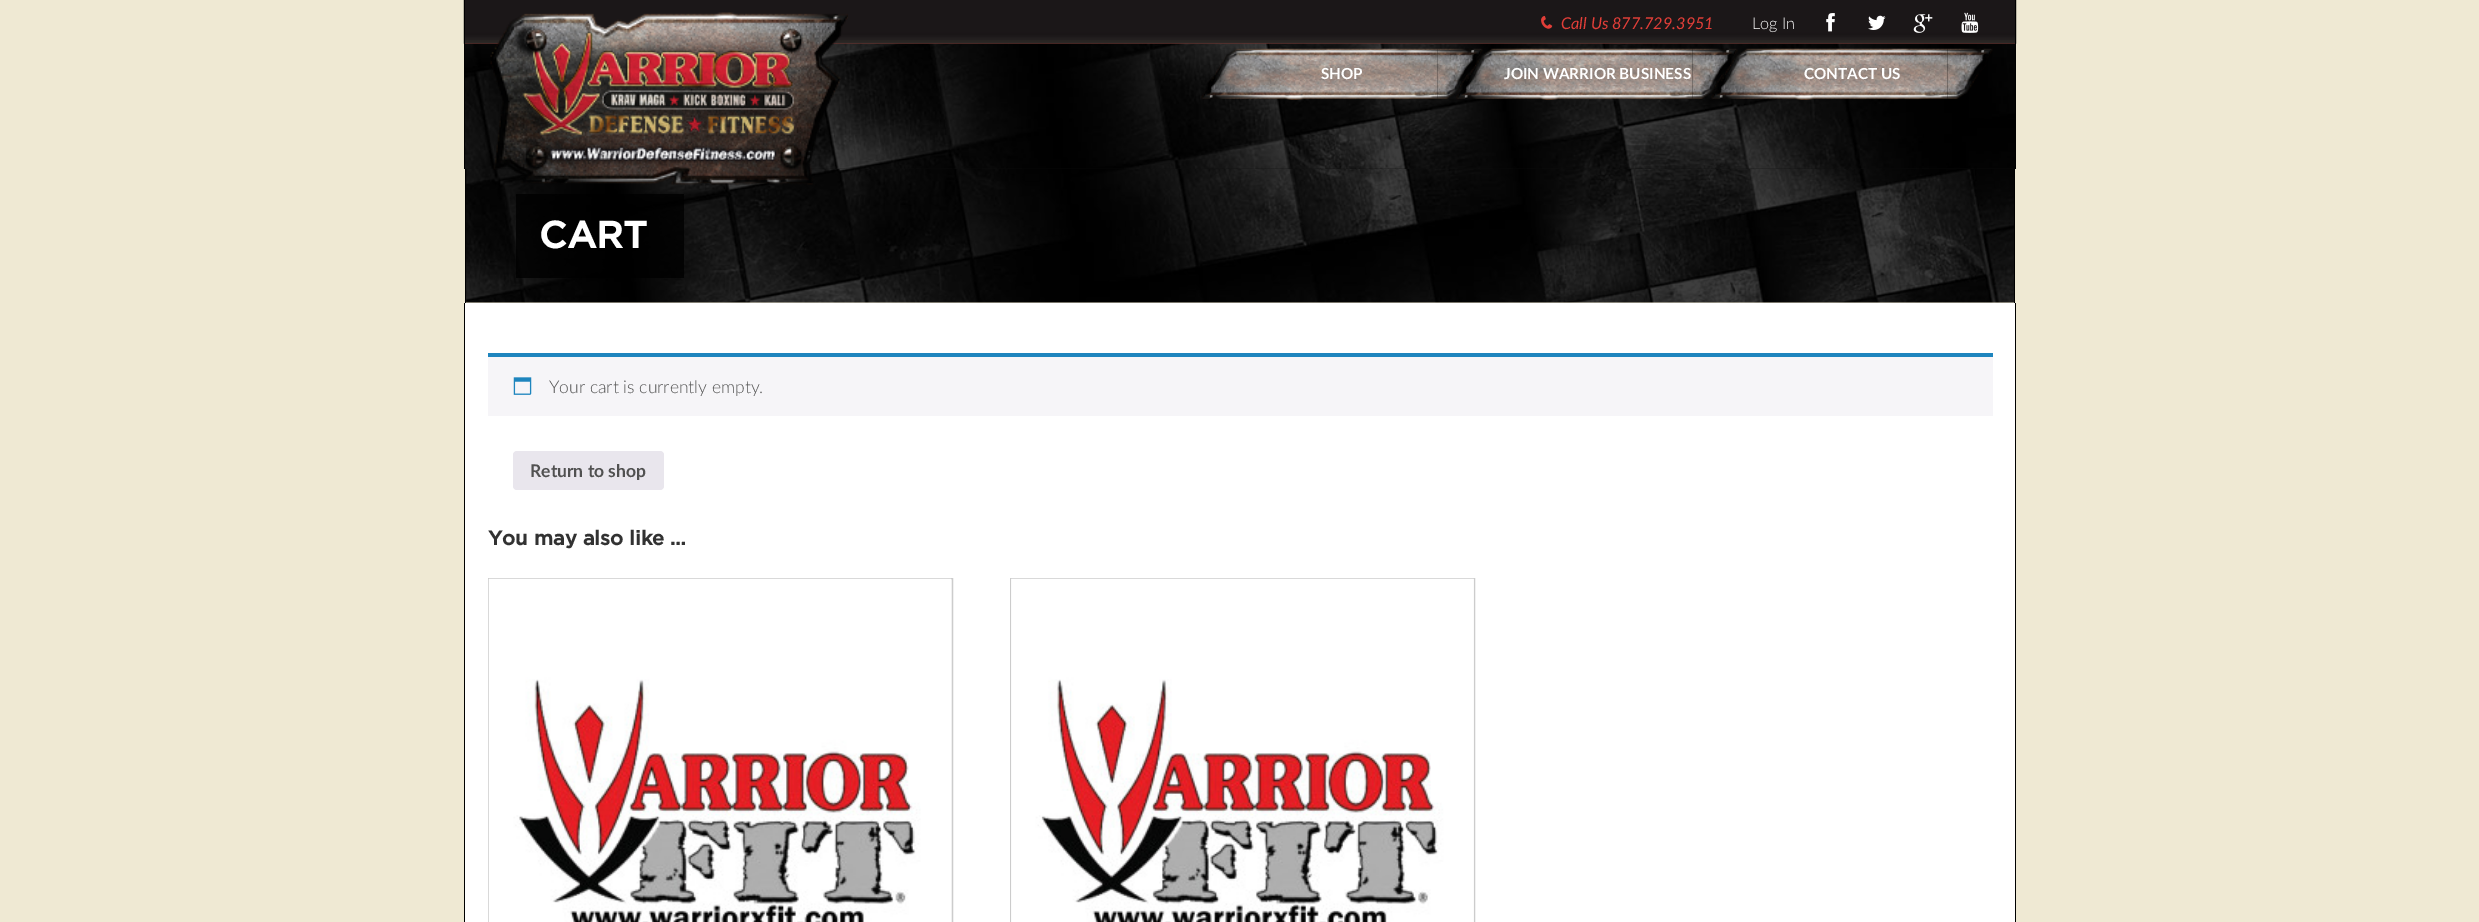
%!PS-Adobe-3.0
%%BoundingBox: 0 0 2479 922
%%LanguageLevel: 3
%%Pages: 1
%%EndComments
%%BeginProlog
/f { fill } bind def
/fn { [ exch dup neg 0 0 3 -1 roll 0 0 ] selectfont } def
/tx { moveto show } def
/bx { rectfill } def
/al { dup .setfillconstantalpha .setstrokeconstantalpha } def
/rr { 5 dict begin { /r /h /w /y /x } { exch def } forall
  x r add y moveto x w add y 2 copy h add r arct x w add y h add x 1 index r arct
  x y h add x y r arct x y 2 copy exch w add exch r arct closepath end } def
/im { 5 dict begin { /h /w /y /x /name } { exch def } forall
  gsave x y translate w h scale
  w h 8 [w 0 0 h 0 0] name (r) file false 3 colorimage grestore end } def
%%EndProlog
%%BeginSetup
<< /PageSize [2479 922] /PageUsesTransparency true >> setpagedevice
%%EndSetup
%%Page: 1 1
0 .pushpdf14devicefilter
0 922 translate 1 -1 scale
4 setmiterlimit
0.937 0.914 0.827 setrgbcolor
0 0 2479 922 bx
(image0.raw) 463 0 1554 44 im
0 setgray
2015 0 1 169 bx
464 0 1 169 bx
(image1.raw) 1541 16 12 13 im
/Lato-Italic 16.25 fn
0.886 0.243 0.22 setrgbcolor
(Call Us 877.729.3951) 1561 29 tx
/Lato-Light 16.25 fn
1 setgray
(Log In) 1752 29 tx
(image2.raw) 1826 13 9 19 im
(image3.raw) 1868 15 18 15 im
(image4.raw) 1913 14 20 19 im
(image5.raw) 1961 12 18 21 im
(image14.raw) 465 168 1550 135 im
(image6.raw) 465 43 1550 126 im
(image7.raw) 490 12 358 173 im
(image8.raw) 1201 48 237 52 im
/Lato-Bold 15.25 fn
(SHOP) 1321 79 tx
(image9.raw) 1437 48 46 51 im
(image10.raw) 1456 48 237 52 im
(JOIN WARRIOR BUSINESS) 1504 79 tx
(image11.raw) 1692 48 46 51 im
(image12.raw) 1711 48 237 52 im
(CONTACT US) 1804 79 tx
(image13.raw) 1947 48 46 51 im
0 setgray
2014 169 1 134 bx
465 169 1 134 bx
0.8 al
516 194 168 84 bx
/Gotham-Bold 37.5 fn
1 al
1 setgray
(CART) 539 248 tx
0 setgray
464 303 1552 619 bx
1 setgray
465 303 1550 619 bx
0.965 0.961 0.973 setrgbcolor
488 357 1505 59 bx
0.118 0.522 0.745 setrgbcolor
488 353 1505 4 bx
(image15.raw) 513 377 19 18 im
/Lato-Light 17.5 fn
0.318 setgray
(Your cart is currently empty.) 549 393 tx
0.914 0.902 0.929 setrgbcolor
513 451 151 39 4 rr f
/Lato-Bold 17.5 fn
0.318 setgray
(Return to shop) 530 477 tx
/Gotham-Bold 20 fn
0.196 setgray
(You may also like …) 488 545 tx
0.941 setgray
951 579 1 343 bx
0.8 setgray
488.5 578.5 464 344 rectstroke
(image16.raw) 488 578 463 344 im
1010.5 578.5 464 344 rectstroke
(image17.raw) 1011 578 463 344 im
.poppdf14devicefilter showpage
%%EOF
